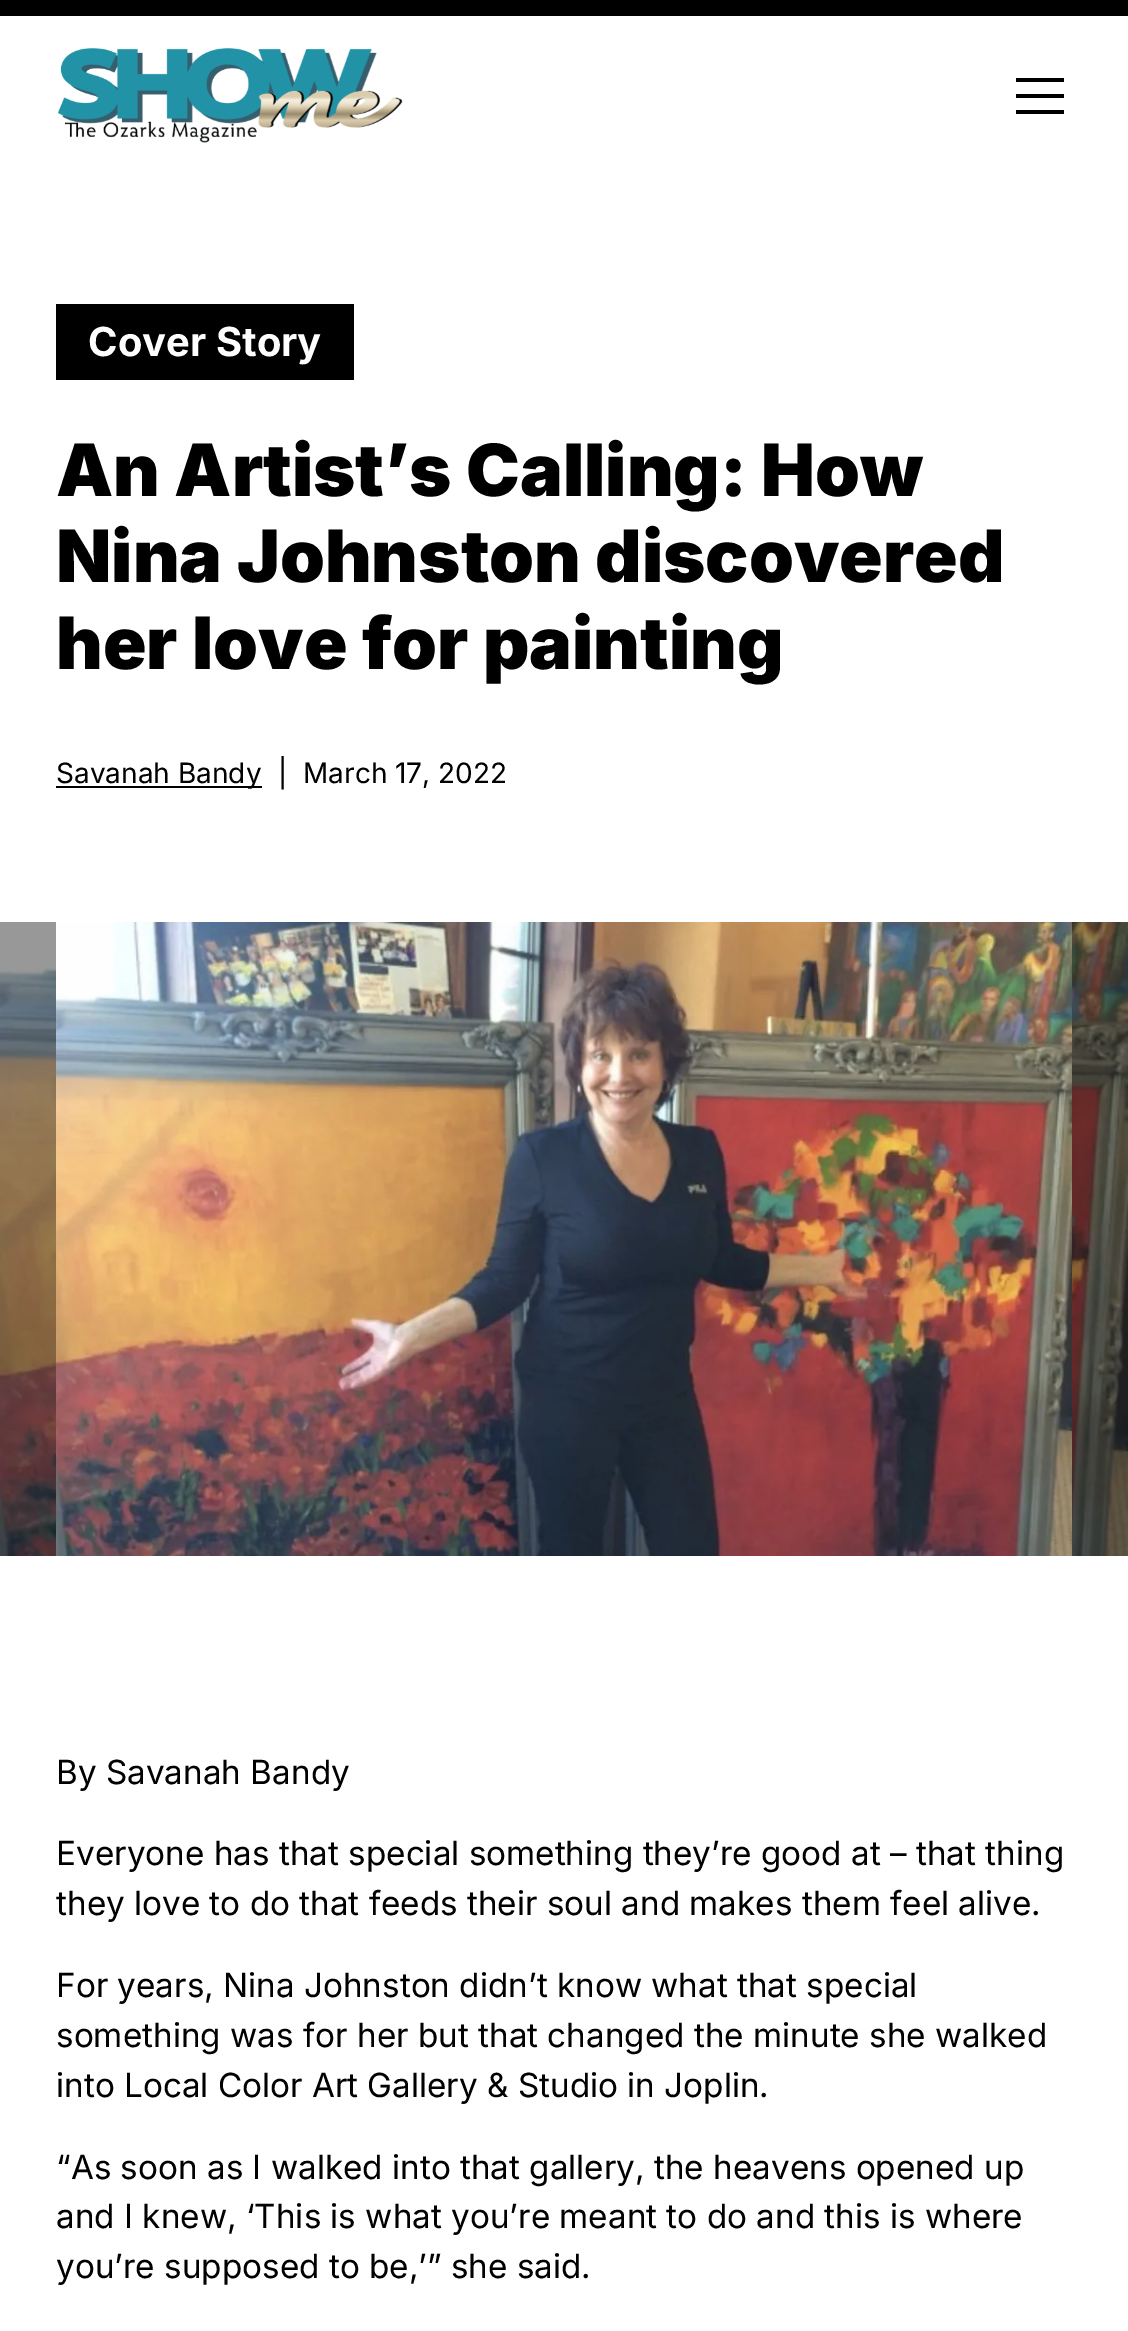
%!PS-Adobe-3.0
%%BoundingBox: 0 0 1128 2331
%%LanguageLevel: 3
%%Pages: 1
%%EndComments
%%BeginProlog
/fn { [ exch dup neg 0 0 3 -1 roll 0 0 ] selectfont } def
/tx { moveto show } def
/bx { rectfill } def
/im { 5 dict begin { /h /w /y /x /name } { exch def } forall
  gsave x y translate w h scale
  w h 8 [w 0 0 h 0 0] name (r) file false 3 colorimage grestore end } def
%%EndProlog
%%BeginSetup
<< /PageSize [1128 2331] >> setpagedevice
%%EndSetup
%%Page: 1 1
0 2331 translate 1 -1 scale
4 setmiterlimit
1 setgray
0 0 1128 2331 bx
0 setgray
0 0 1128 16 bx
(image0.raw) 58 48 345 95 im
1016 78 48 4 bx
1016 94 48 4 bx
1016 110 48 4 bx
56 304 298 76 bx
/Inter-Bold 40 fn
1 setgray
(Cover Story) 88 356 tx
/Inter-Black 72 fn
0 setgray
(An Artist’s Calling: How) 56 496 tx
(Nina Johnston discovered) 56 582 tx
(her love for painting) 56 669 tx
56 786 206 2 bx
/Inter-Regular 28 fn
(Savanah Bandy) 56 783 tx
(|) 278 783 tx
(March 17, 2022) 303 783 tx
(image1.raw) 0 922 1128 634 im
(image2.raw) 56 922 1016 634 im
/Inter-Regular 33.25 fn
(By Savanah Bandy) 56 1784 tx
(Everyone has that special something they’re good at – that thing) 56 1865 tx
(they love to do that feeds their soul and makes them feel alive.) 56 1915 tx
(For years, Nina Johnston didn’t know what that special) 56 1997 tx
(something was for her but that changed the minute she walked) 56 2047 tx
(into Local Color Art Gallery & Studio in Joplin.) 56 2097 tx
(“As soon as I walked into that gallery, the heavens opened up) 56 2179 tx
(and I knew, ‘This is what you’re meant to do and this is where) 56 2228 tx
(you’re supposed to be,’” she said.) 56 2278 tx
showpage
%%EOF
